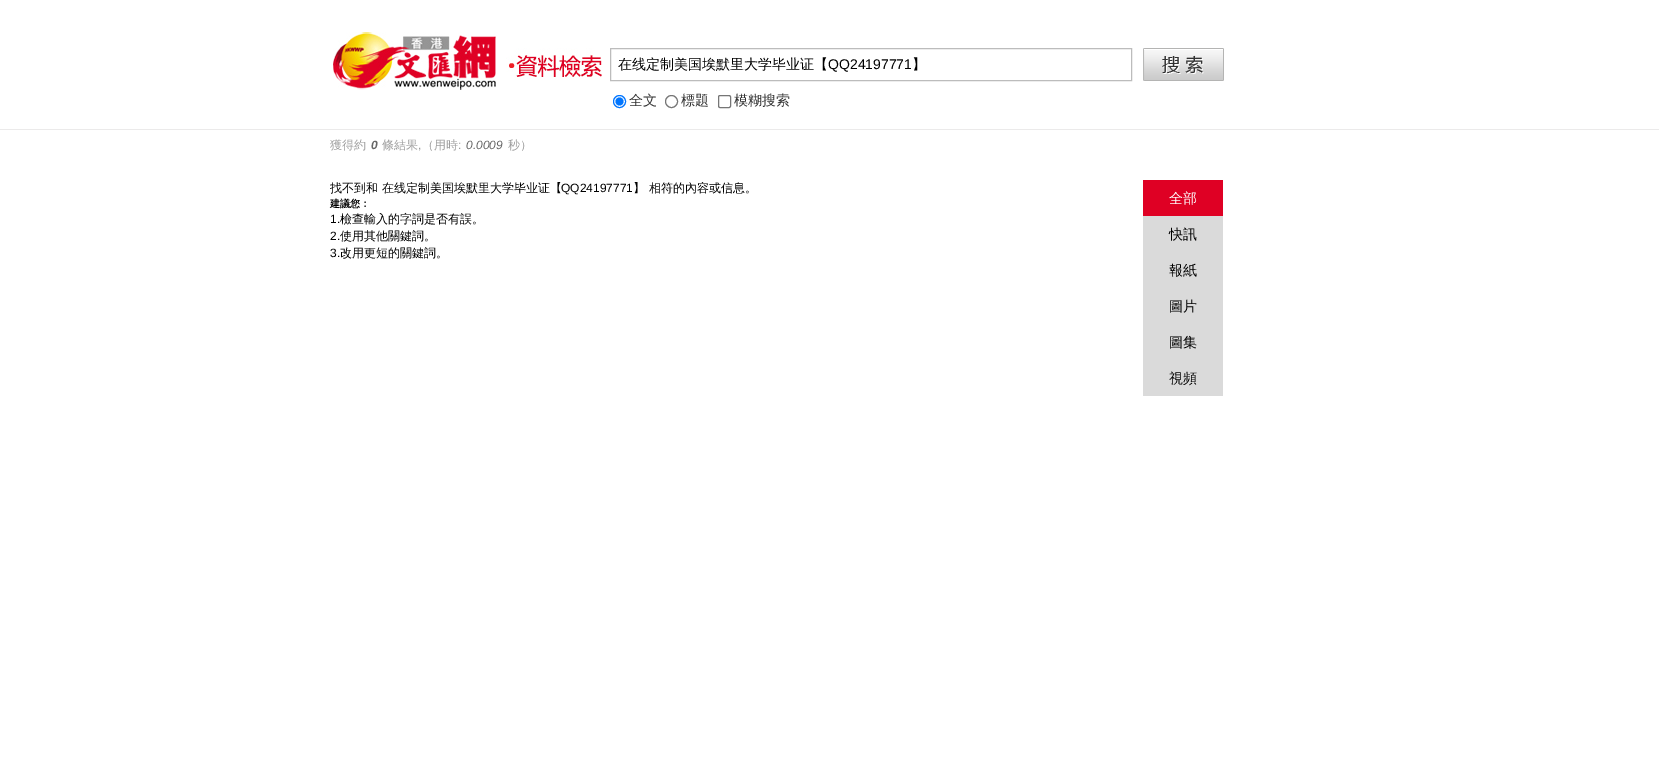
%!PS-Adobe-3.0
%%BoundingBox: 0 0 1659 778
%%LanguageLevel: 3
%%Pages: 1
%%EndComments
%%BeginProlog
/f { fill } bind def
/S { stroke } bind def
/fn { [ exch dup neg 0 0 3 -1 roll 0 0 ] selectfont } def
/tx { moveto show } def
/bx { rectfill } def
/ci { newpath 0 360 arc closepath } def
/rr { 5 dict begin { /r /h /w /y /x } { exch def } forall
  x r add y moveto x w add y 2 copy h add r arct x w add y h add x 1 index r arct
  x y h add x y r arct x y 2 copy exch w add exch r arct closepath end } def
/im { 5 dict begin { /h /w /y /x /name } { exch def } forall
  gsave x y translate w h scale
  w h 8 [w 0 0 h 0 0] name (r) file false 3 colorimage grestore end } def
%%EndProlog
%%BeginSetup
<< /PageSize [1659 778] >> setpagedevice
%%EndSetup
%%Page: 1 1
0 778 translate 1 -1 scale
4 setmiterlimit
1 setgray
0 0 1659 778 bx
0.922 0.918 0.918 setrgbcolor
0 129 1659 1 bx
(image0.raw) 333 32 269 58 im
0.737 setgray
610.5 48.5 521 32 rectstroke
/WenQuanYiZenHei-Medium 14 fn
0 setgray
(在线定制美国埃默里大学毕业证【) 618 69 tx
/LiberationSans-Regular 14 fn
(QQ24197771) 828 69 tx
/WenQuanYiZenHei-Medium 14 fn
(】) 912 69 tx
0.937 setgray
1143 48 81 33 bx
(image1.raw) 1143 48 81 33 im
0 0.459 1 setrgbcolor
619.5 101.5 6 ci S
619.5 101.5 4 ci f
0.2 setgray
(全文) 629 105 tx
0.463 setgray
671.5 101.5 6 ci S
0.2 setgray
(標題) 681 105 tx
0.463 setgray
718.5 95.5 12 12 1.5 rr S
0.2 setgray
(模糊搜索) 734 105 tx
/WenQuanYiZenHei-Medium 12 fn
0.62 setgray
(獲得約) 330 149 tx
/LiberationSans-BoldItalic 12 fn
0.4 setgray
(0) 371 149 tx
/WenQuanYiZenHei-Medium 12 fn
0.62 setgray
(條結果 （用時) 382 149 tx
/LiberationSans-Regular 12 fn
(:) 458 149 tx
/LiberationSans-Italic 12 fn
0.4 setgray
(0.0009) 466 149 tx
/WenQuanYiZenHei-Medium 12 fn
0.62 setgray
(秒）) 508 149 tx
/LiberationSans-Regular 12 fn
(,) 418 149 tx
/WenQuanYiZenHei-Medium 12 fn
0 setgray
(找不到和 在线定制美国埃默里大学毕业证【) 330 192 tx
/LiberationSans-Regular 12 fn
(QQ24197771) 561 192 tx
/WenQuanYiZenHei-Medium 12 fn
(】 相符的內容或信息。) 633 192 tx
/WenQuanYiZenHei-Bold 10 fn
(建議您：) 330 207 tx
/LiberationSans-Regular 12 fn
(1.) 330 223 tx
/WenQuanYiZenHei-Medium 12 fn
(檢查輸入的字詞是否有誤。) 340 223 tx
/LiberationSans-Regular 12 fn
(2.) 330 240 tx
/WenQuanYiZenHei-Medium 12 fn
(使用其他關鍵詞。) 340 240 tx
/LiberationSans-Regular 12 fn
(3.) 330 257 tx
/WenQuanYiZenHei-Medium 12 fn
(改用更短的關鍵詞。) 340 257 tx
0.875 0 0.141 setrgbcolor
1143 180 80 36 bx
/WenQuanYiZenHei-Medium 14 fn
1 setgray
(全部) 1169 203 tx
0.855 setgray
1143 216 80 180 bx
0 setgray
(快訊) 1169 239 tx
(報紙) 1169 275 tx
(圖片) 1169 311 tx
(圖集) 1169 347 tx
(視頻) 1169 383 tx
showpage
%%EOF
